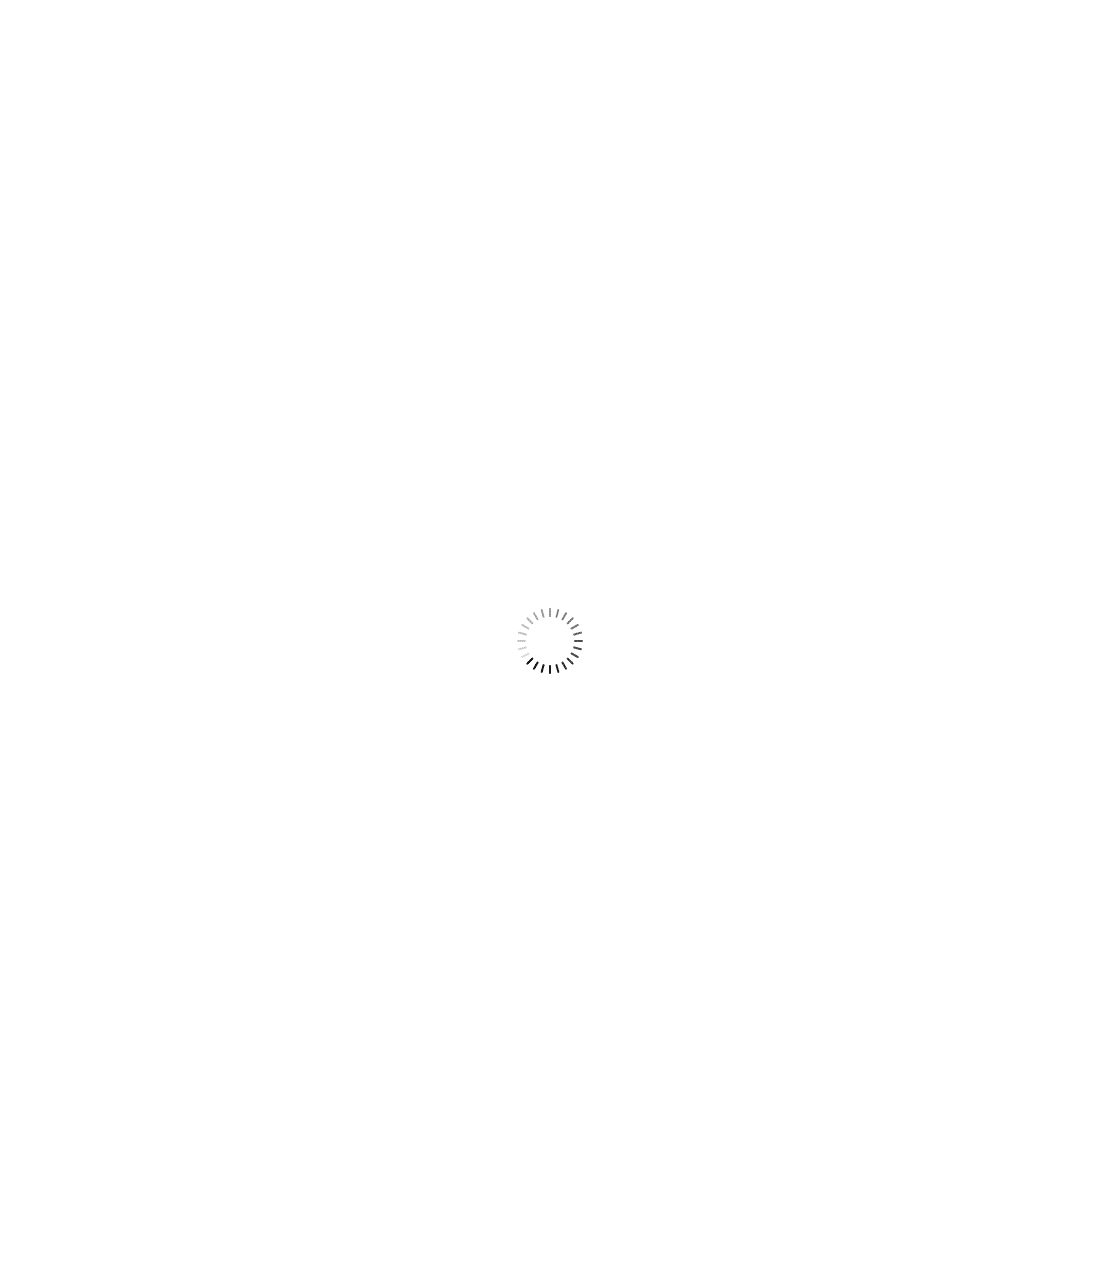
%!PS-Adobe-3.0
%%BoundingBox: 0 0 1099 1282
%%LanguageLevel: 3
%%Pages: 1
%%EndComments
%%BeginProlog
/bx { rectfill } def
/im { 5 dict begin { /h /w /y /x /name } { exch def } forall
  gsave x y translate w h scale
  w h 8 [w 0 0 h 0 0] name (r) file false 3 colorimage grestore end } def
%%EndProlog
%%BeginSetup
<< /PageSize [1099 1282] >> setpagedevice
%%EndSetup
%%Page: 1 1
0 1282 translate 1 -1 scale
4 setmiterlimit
1 setgray
0 0 1099 1282 bx
(image0.raw) 517 608 66 66 im
showpage
%%EOF
